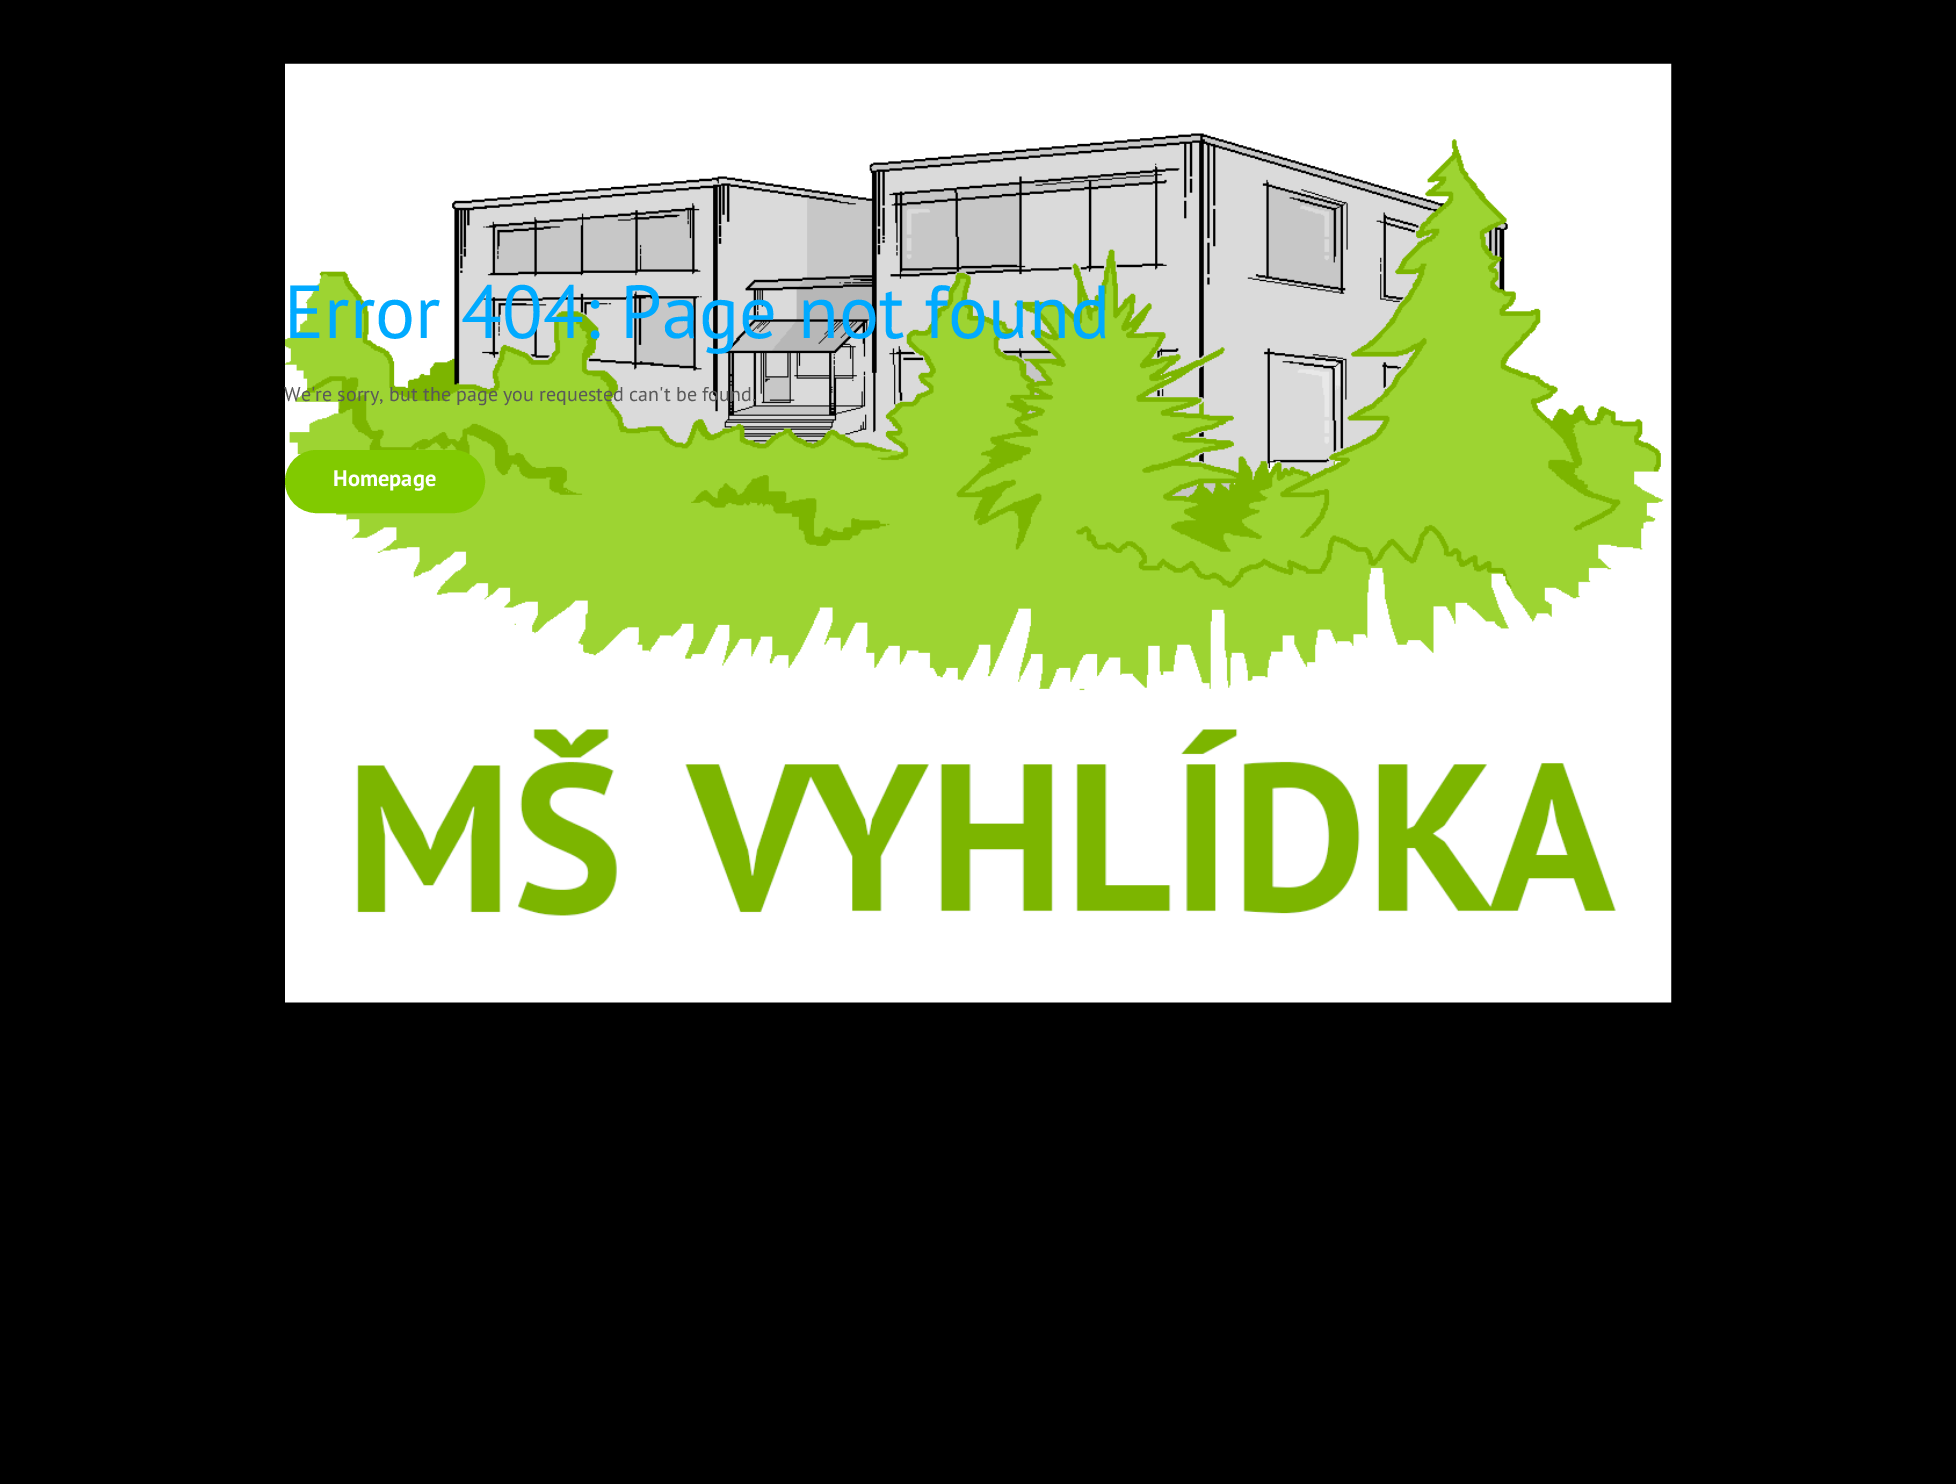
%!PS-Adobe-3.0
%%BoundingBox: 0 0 1956 1484
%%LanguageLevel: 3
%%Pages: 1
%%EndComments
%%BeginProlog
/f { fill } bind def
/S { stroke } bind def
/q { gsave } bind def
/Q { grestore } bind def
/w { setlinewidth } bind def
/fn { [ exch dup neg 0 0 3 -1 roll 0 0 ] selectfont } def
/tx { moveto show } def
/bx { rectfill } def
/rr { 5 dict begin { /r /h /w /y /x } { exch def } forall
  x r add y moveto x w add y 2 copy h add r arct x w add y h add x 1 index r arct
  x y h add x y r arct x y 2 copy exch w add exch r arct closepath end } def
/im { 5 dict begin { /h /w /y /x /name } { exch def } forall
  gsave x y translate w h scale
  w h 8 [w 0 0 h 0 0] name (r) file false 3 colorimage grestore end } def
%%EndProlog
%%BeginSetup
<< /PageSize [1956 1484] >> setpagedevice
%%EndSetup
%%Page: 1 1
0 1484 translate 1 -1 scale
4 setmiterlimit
0 setgray
0 0 1956 1484 bx
(image0.raw) 285 63 1387 940 im
/PTSans-Regular 75 fn
0 0.667 1 setrgbcolor
(Error 404: Page not found) 284 338 tx
/PTSans-Regular 20 fn
0.349 setgray
(We're sorry, but the page you requested can't be found.) 284 401 tx
0.506 0.792 0 setrgbcolor
286.5 451.5 197 60 30 rr q f Q
3 w
S
/PTSans-Bold 22.5 fn
1 setgray
(Homepage) 333 486 tx
showpage
%%EOF
